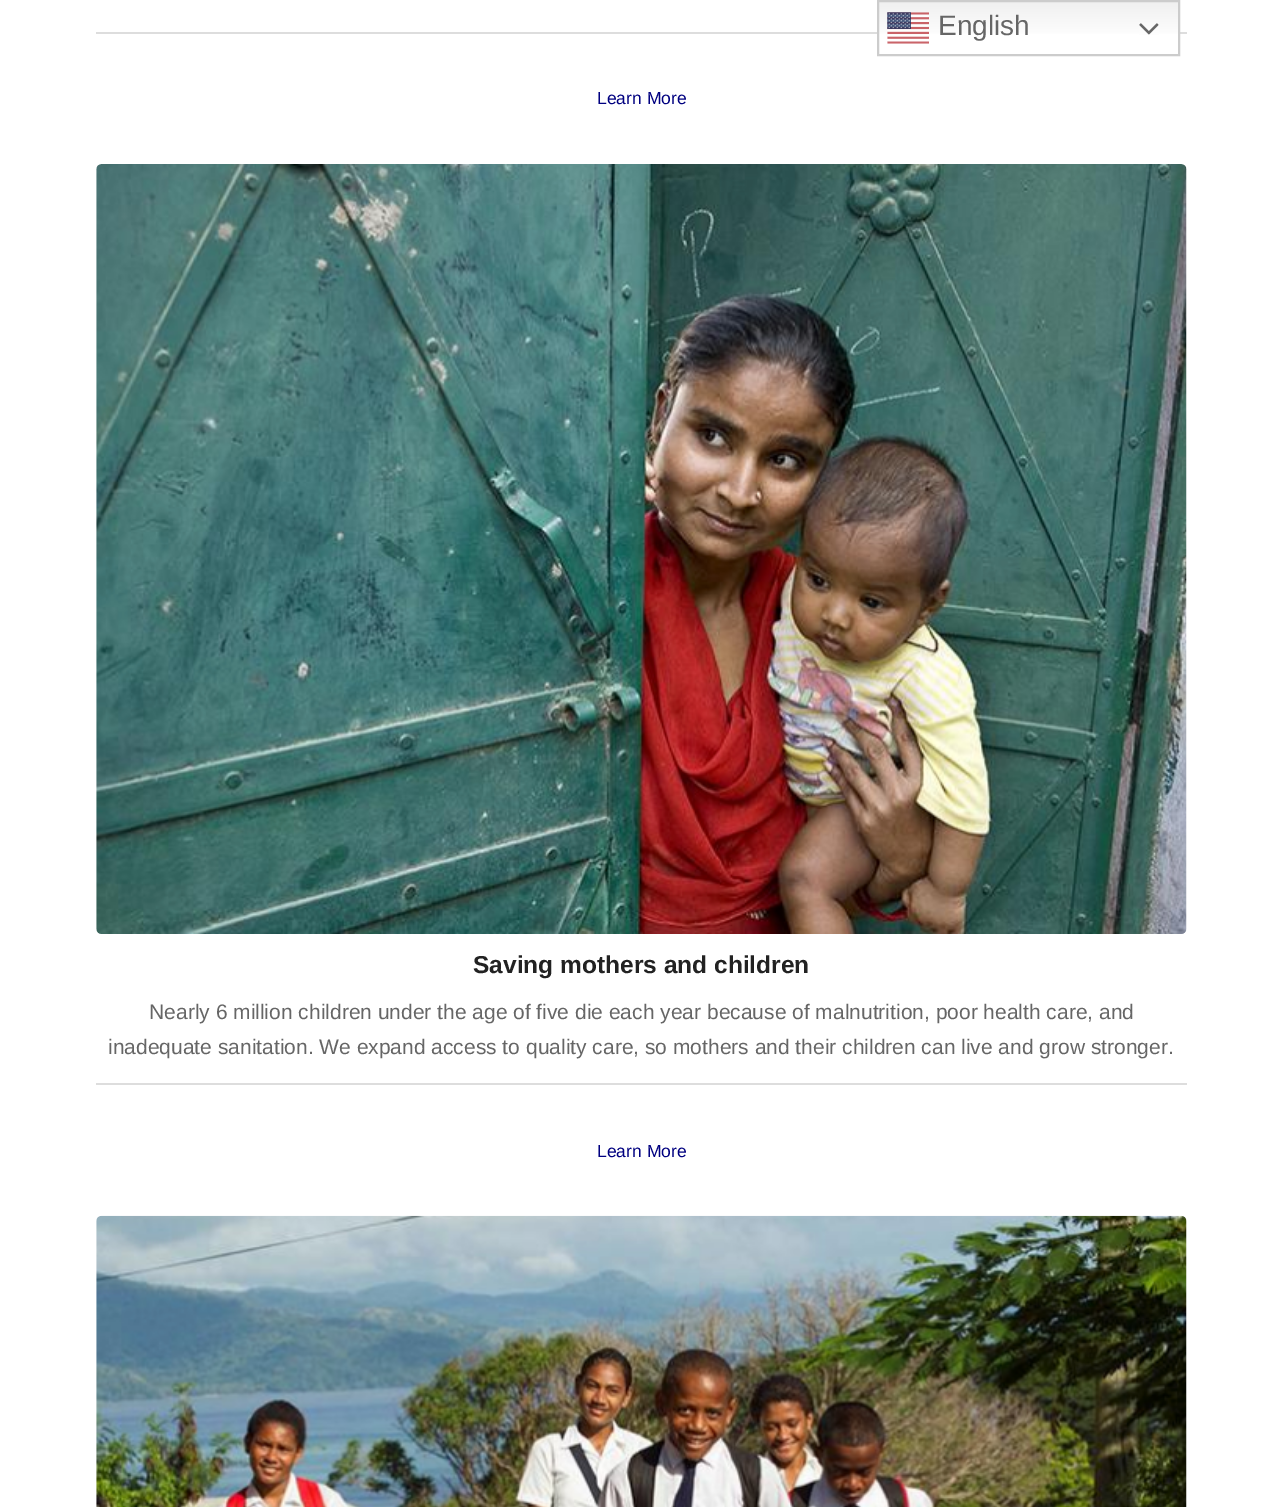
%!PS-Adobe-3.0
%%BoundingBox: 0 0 1282 1507
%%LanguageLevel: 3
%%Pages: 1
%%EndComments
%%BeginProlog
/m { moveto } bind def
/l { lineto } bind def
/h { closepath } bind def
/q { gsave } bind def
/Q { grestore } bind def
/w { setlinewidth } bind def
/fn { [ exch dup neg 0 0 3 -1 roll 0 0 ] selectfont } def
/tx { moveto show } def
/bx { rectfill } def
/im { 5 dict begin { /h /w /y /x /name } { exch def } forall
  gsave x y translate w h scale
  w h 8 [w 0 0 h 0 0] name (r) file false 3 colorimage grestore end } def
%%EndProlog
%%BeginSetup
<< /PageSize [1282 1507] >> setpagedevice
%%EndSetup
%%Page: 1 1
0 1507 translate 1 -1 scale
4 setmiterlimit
1 setgray
0 0 1282 1507 bx
0.867 setgray
96 32 1091 2 bx
q 879 2 m 1178 2 l 1178 34 l 879 34 l h clip newpath
<< /ShadingType 2 /ColorSpace /DeviceRGB /Coords [1028 0 1028 56] /Extend [true true] /Function << /FunctionType 3 /Domain [0 1] /Functions [<< /FunctionType 2 /Domain [0 1] /C0 [0.937 0.937 0.937] /C1 [1 1 1] /N 1 >> << /FunctionType 2 /Domain [0 1] /C0 [1 1 1] /C1 [1 1 1] /N 1 >>] /Bounds [0.7] /Encode [0 1 0 1] >> >> shfill Q
0.8 setgray
2 w
878 1 301 54 rectstroke
(image0.raw) 887 12 42 32 im
/LiberationSans-Regular 28 fn
0.4 setgray
(English) 938 35 tx
(image1.raw) 1139 23 20 12 im
/LiberationSans-Regular 17.5 fn
0 0 0.502 setrgbcolor
(Learn More) 597 104 tx
(image2.raw) 96 164 1091 770 im
/LiberationSans-Bold 24.5 fn
0.133 setgray
(Saving mothers and children) 473 973 tx
/LiberationSans-Regular 21 fn
0.4 setgray
(Nearly 6 million children under the age of five die each year because of malnutrition, poor health care, and) 149 1019 tx
(inadequate sanitation. We expand access to quality care, so mothers and their children can live and grow stronger.) 108 1054 tx
0.867 setgray
96 1083 1091 2 bx
/LiberationSans-Regular 17.5 fn
0 0 0.502 setrgbcolor
(Learn More) 597 1157 tx
(image3.raw) 96 1215 1091 292 im
showpage
%%EOF
